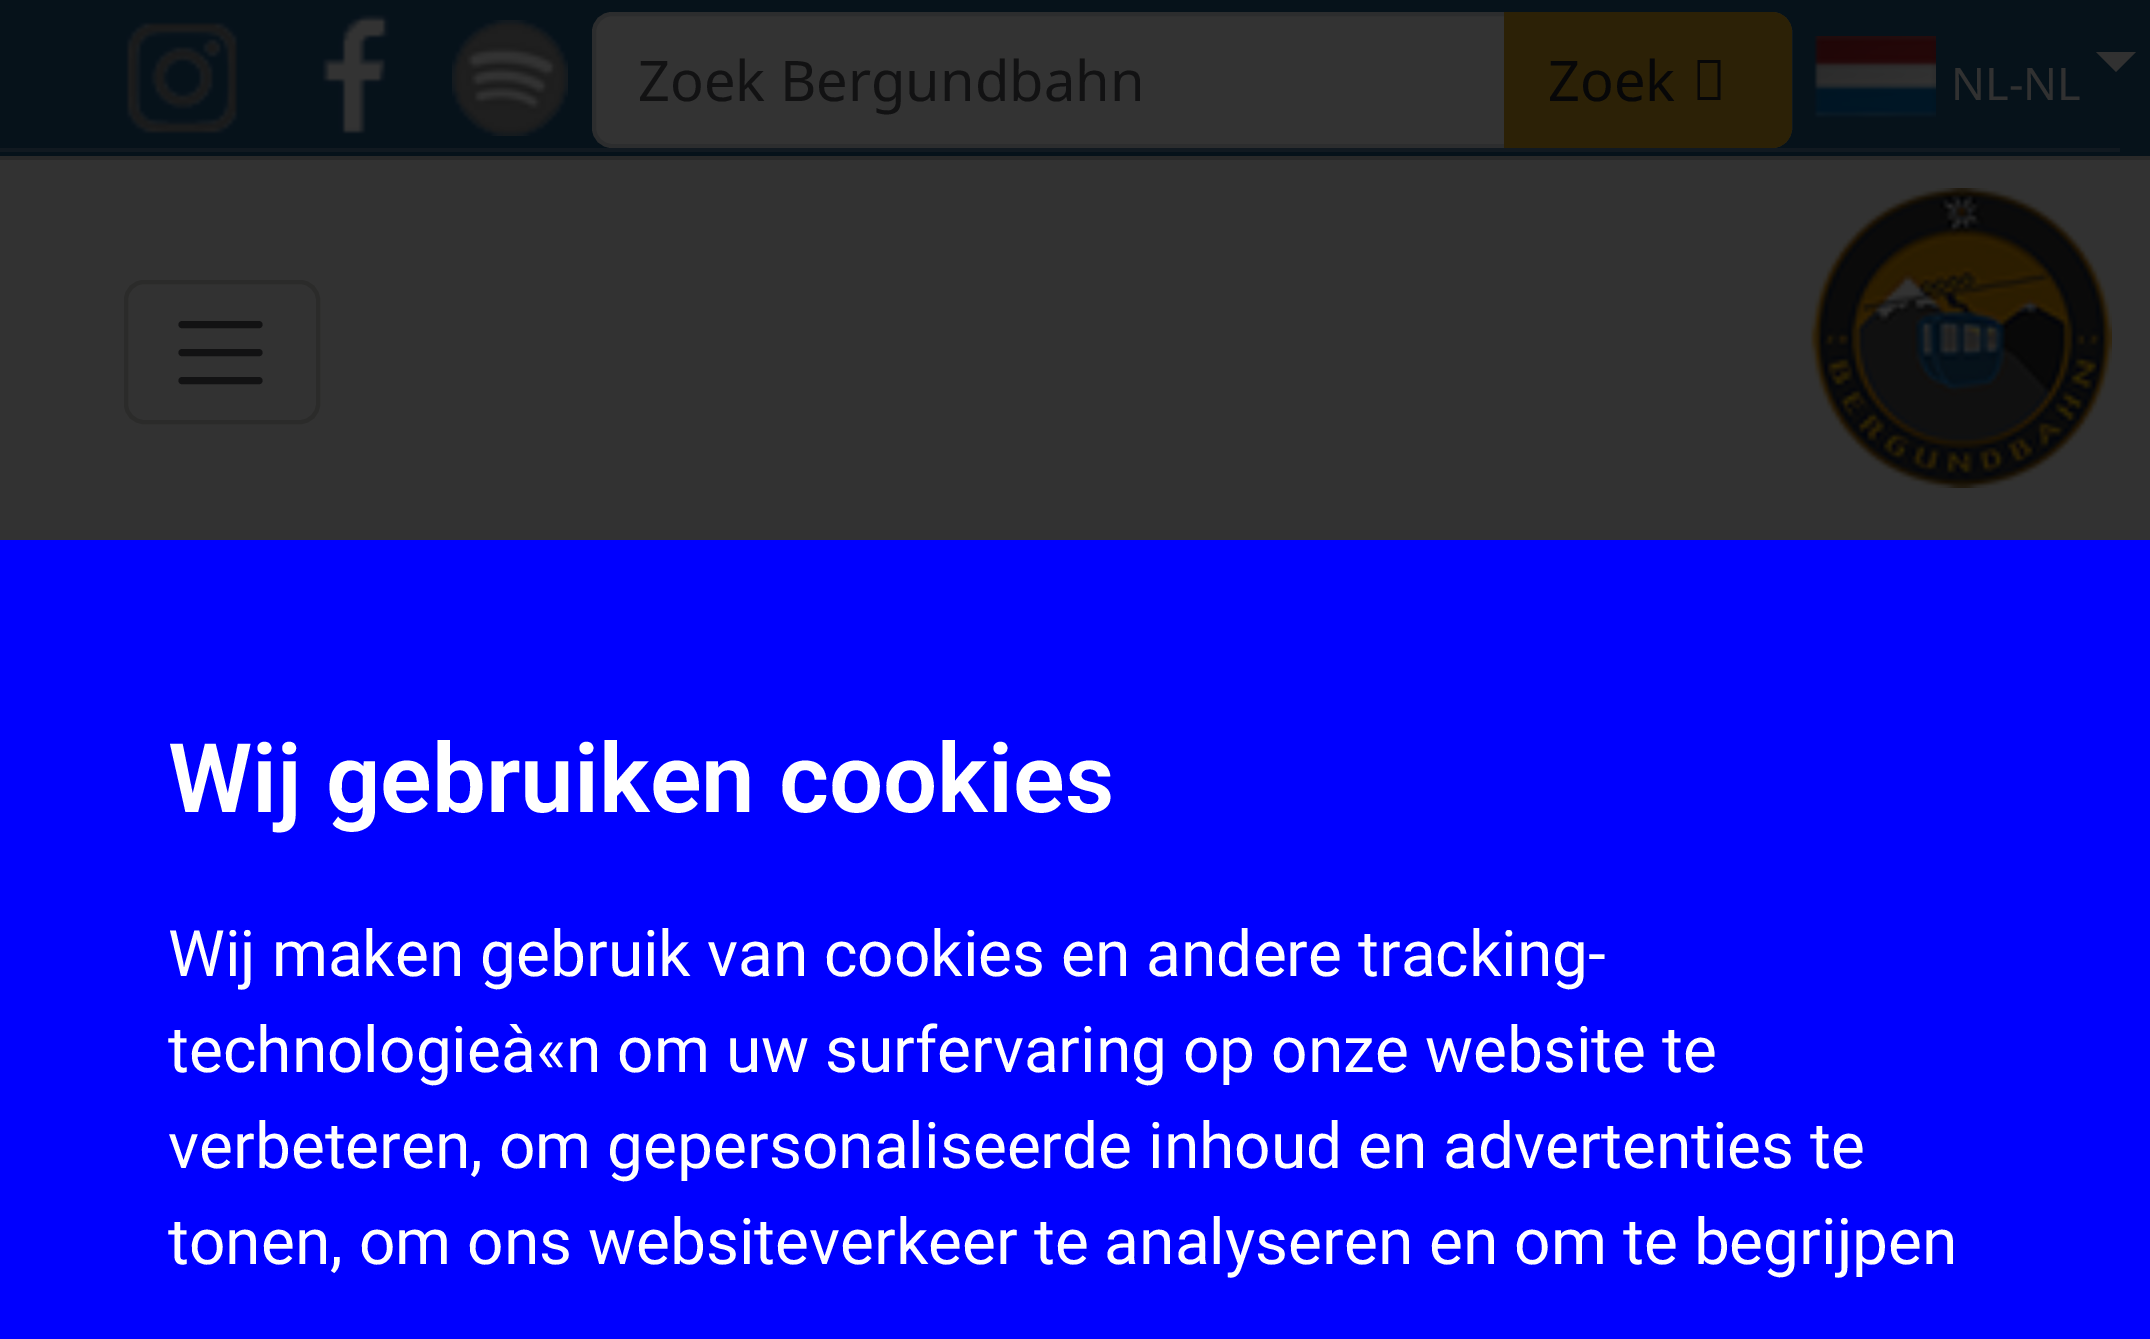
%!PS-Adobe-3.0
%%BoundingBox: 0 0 2150 1339
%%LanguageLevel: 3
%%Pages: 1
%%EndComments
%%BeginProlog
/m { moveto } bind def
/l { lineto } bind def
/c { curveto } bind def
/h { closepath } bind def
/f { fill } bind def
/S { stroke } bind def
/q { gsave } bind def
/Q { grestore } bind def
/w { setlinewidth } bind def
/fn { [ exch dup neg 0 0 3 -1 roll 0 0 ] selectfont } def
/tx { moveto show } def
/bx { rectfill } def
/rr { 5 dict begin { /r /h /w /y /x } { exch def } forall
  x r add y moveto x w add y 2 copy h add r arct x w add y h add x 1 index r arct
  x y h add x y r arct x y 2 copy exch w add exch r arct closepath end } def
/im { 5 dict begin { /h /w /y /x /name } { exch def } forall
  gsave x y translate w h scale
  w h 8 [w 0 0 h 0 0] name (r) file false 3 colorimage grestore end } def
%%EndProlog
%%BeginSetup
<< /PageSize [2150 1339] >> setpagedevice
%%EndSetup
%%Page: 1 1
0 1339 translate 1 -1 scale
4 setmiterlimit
0.024 0.071 0.102 setrgbcolor
0 0 2150 1339 bx
0.161 setgray
0 156 2150 4 bx
(image0.raw) 126 22 112 112 im
(image1.raw) 322 14 68 120 im
(image2.raw) 452 20 116 116 im
0.2 setgray
594 14 1196 132 18 rr q f Q
0.173 0.176 0.18 setrgbcolor
4 w
S
/NotoSans-Regular 56 fn
0.071 0.071 0.075 setrgbcolor
(Zoek Bergundbahn) 638 101 tx
0.173 0.129 0.024 setrgbcolor
1504 12 m 1772 12 l 1783 12 1792 21 1792 32 c 1792 128 l 1792 139 1783 148 1772 148 c 1504 148 l h f
0.027 0.027 0.031 setrgbcolor
(Zoek) 1548 101 tx
1697.5 100 m 1697.5 60 l 1720.5 60 l 1720.5 100 l h 1700 97 m 1717.5 97 l 1717.5 63 l 1700 63 l h f
(image3.raw) 1814 36 122 82 im
0.192 setgray
2096 52 m 2136 52 l 2116 72 l h f
/NotoSans-Regular 45 fn
(NL-NL) 1951 100 tx
0.067 0.098 0.125 setrgbcolor
0 148 2120 4 bx
0.196 setgray
0 160 2150 380 bx
0.169 0.169 0.165 setrgbcolor
126 282 192 140 18 rr S
0.071 0.071 0.075 setrgbcolor
7 w
1 setlinecap
182 324.5 m 259 324.5 l 182 352.5 m 259 352.5 l 182 380.5 m 259 380.5 l S
(image4.raw) 1810 188 302 300 im
0 0 1 setrgbcolor
0 540 2150 799 bx
/Roboto-SemiBold 96 fn
1 setgray
(Wij gebruiken cookies) 168 812 tx
/Roboto-Regular 64 fn
(Wij maken gebruik van cookies en andere tracking-) 168 976 tx
(technologieà«n om uw surfervaring op onze website te) 168 1072 tx
(verbeteren, om gepersonaliseerde inhoud en advertenties te) 168 1168 tx
(tonen, om ons websiteverkeer te analyseren en om te begrijpen) 168 1264 tx
showpage
%%EOF
